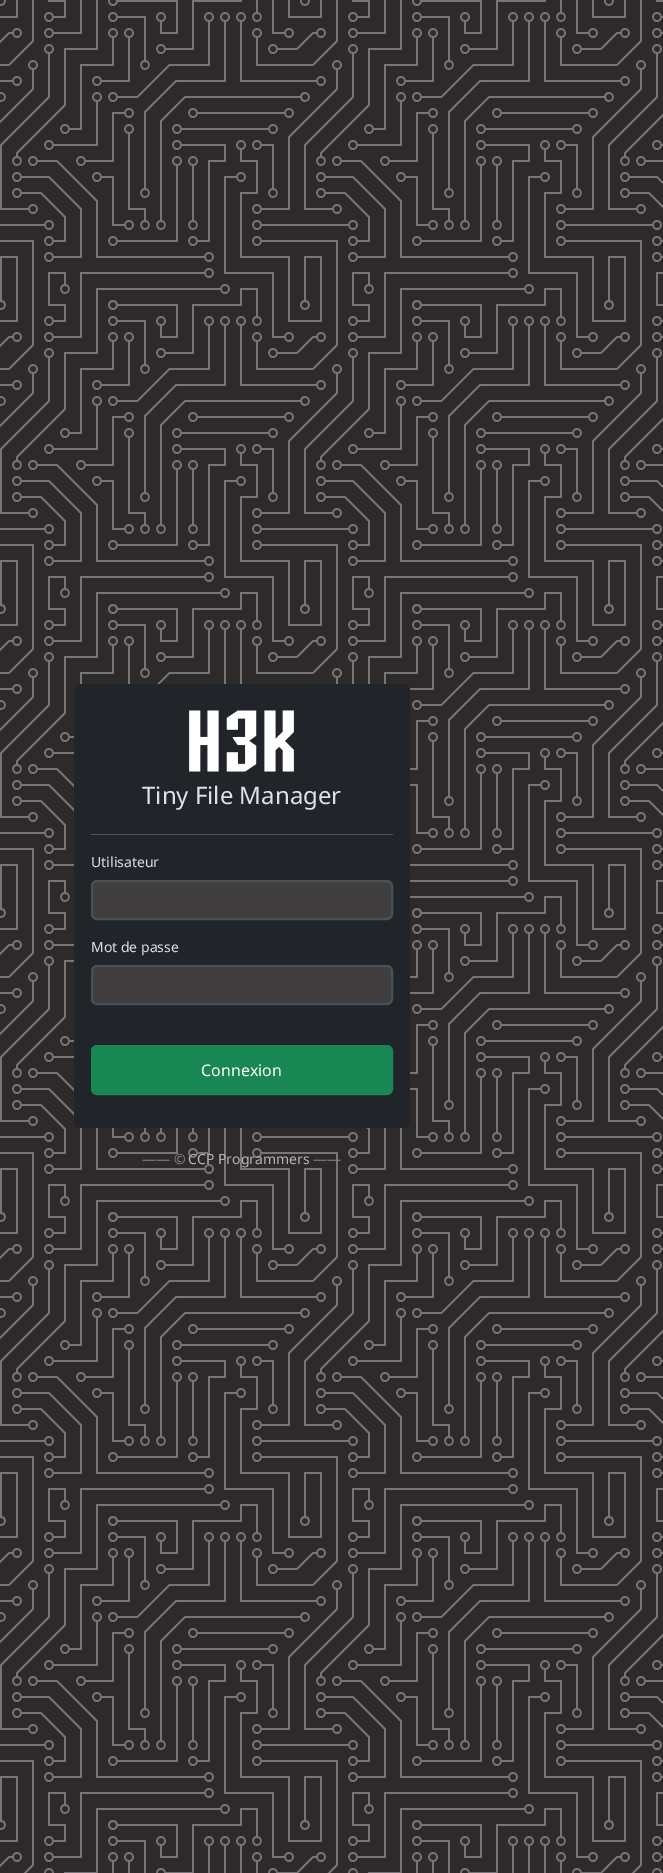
%!PS-Adobe-3.0
%%BoundingBox: 0 0 663 1873
%%LanguageLevel: 3
%%Pages: 1
%%EndComments
%%BeginProlog
/f { fill } bind def
/S { stroke } bind def
/q { gsave } bind def
/Q { grestore } bind def
/w { setlinewidth } bind def
/fn { [ exch dup neg 0 0 3 -1 roll 0 0 ] selectfont } def
/tx { moveto show } def
/bx { rectfill } def
/rr { 5 dict begin { /r /h /w /y /x } { exch def } forall
  x r add y moveto x w add y 2 copy h add r arct x w add y h add x 1 index r arct
  x y h add x y r arct x y 2 copy exch w add exch r arct closepath end } def
/im { 5 dict begin { /h /w /y /x /name } { exch def } forall
  gsave x y translate w h scale
  w h 8 [w 0 0 h 0 0] name (r) file false 3 colorimage grestore end } def
%%EndProlog
%%BeginSetup
<< /PageSize [663 1873] >> setpagedevice
%%EndSetup
%%Page: 1 1
0 1873 translate 1 -1 scale
4 setmiterlimit
0.184 0.165 0.165 setrgbcolor
0 0 663 1873 bx
(image0.raw) 0 0 663 1873 im
0.129 0.145 0.161 setrgbcolor
74 684 336 444 6 rr f
(image1.raw) 189 710 105 62 im
/NotoSans-Regular 24 fn
0.871 0.886 0.902 setrgbcolor
(Tiny File Manager) 142 804 tx
0.314 0.329 0.345 setrgbcolor
91 834 302 1 bx
/NotoSans-Regular 14 fn
0.871 0.886 0.902 setrgbcolor
(Utilisateur) 91 867 tx
0.251 0.243 0.243 setrgbcolor
92 881 300 38 5 rr q f Q
0.286 0.314 0.341 setrgbcolor
2 w
S
0.871 0.886 0.902 setrgbcolor
(Mot de passe) 91 952 tx
0.251 0.243 0.243 setrgbcolor
92 966 300 38 5 rr q f Q
0.286 0.314 0.341 setrgbcolor
S
0.098 0.529 0.329 setrgbcolor
91.5 1045.5 301 49 5.5 rr q f Q
1 w
S
/NotoSans-Regular 16 fn
1 setgray
(Connexion) 201 1076 tx
/NotoSans-Regular 14 fn
0.533 setgray
(—— ©) 142 1164 tx
0.702 0.71 0.722 setrgbcolor
(CCP Programmers) 188 1164 tx
0.533 setgray
(——) 313 1164 tx
showpage
%%EOF
